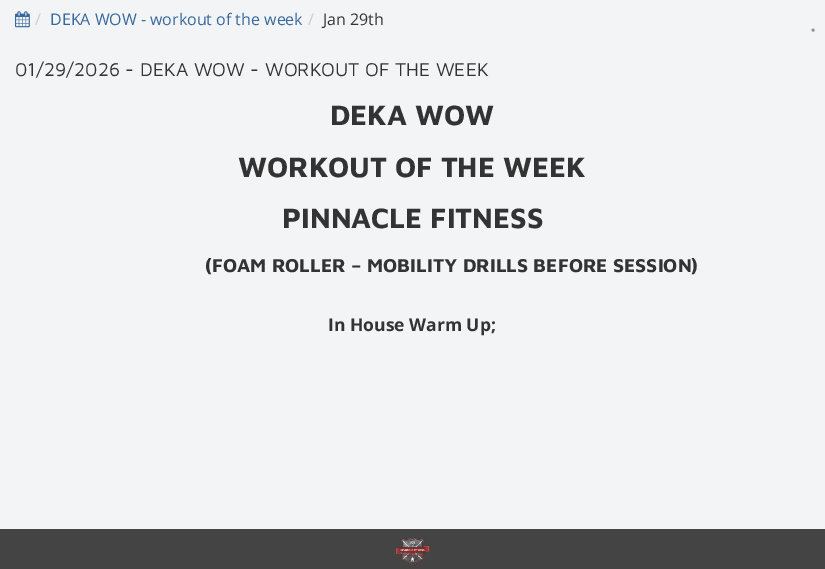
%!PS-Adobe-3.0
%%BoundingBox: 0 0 825 569
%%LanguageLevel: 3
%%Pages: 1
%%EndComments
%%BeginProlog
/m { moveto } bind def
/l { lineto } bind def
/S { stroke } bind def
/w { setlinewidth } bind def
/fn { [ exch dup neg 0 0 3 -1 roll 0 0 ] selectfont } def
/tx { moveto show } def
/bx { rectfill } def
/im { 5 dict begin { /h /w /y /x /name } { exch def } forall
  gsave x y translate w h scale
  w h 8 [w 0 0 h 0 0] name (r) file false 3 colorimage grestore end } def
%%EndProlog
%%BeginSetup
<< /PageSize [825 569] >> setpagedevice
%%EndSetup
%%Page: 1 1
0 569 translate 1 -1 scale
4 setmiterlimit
0.953 0.957 0.965 setrgbcolor
0 0 825 569 bx
(image0.raw) 15 11 15 17 im
/OpenSans-Regular 16 fn
0.8 setgray
(/) 35 25 tx
0.212 0.408 0.616 setrgbcolor
(DEKA WOW - workout of the week) 50 25 tx
0.8 setgray
(/) 308 25 tx
0.2 setgray
(Jan 29th) 323 25 tx
/MavenPro-Regular 19.2 fn
(01/29/2026 - DEKA WOW - WORKOUT OF THE WEEK) 15 76 tx
/MavenPro-Bold 28.75 fn
(DEKA WOW) 330 125 tx
(WORKOUT OF THE WEEK) 238 177 tx
(PINNACLE FITNESS) 282 228 tx
/MavenPro-Bold 19.2 fn
(\(FOAM ROLLER – MOBILITY DRILLS BEFORE SESSION\)) 205 272 tx
/OpenSans-Bold 17.5 fn
(In House Warm Up;) 328 331 tx
0.576 0.576 0.58 setrgbcolor
3 w
1 setlinecap
813 30 m 813 30 l S
0.267 setgray
0 529 825 40 bx
(image1.raw) 395 537 35 29 im
showpage
%%EOF
